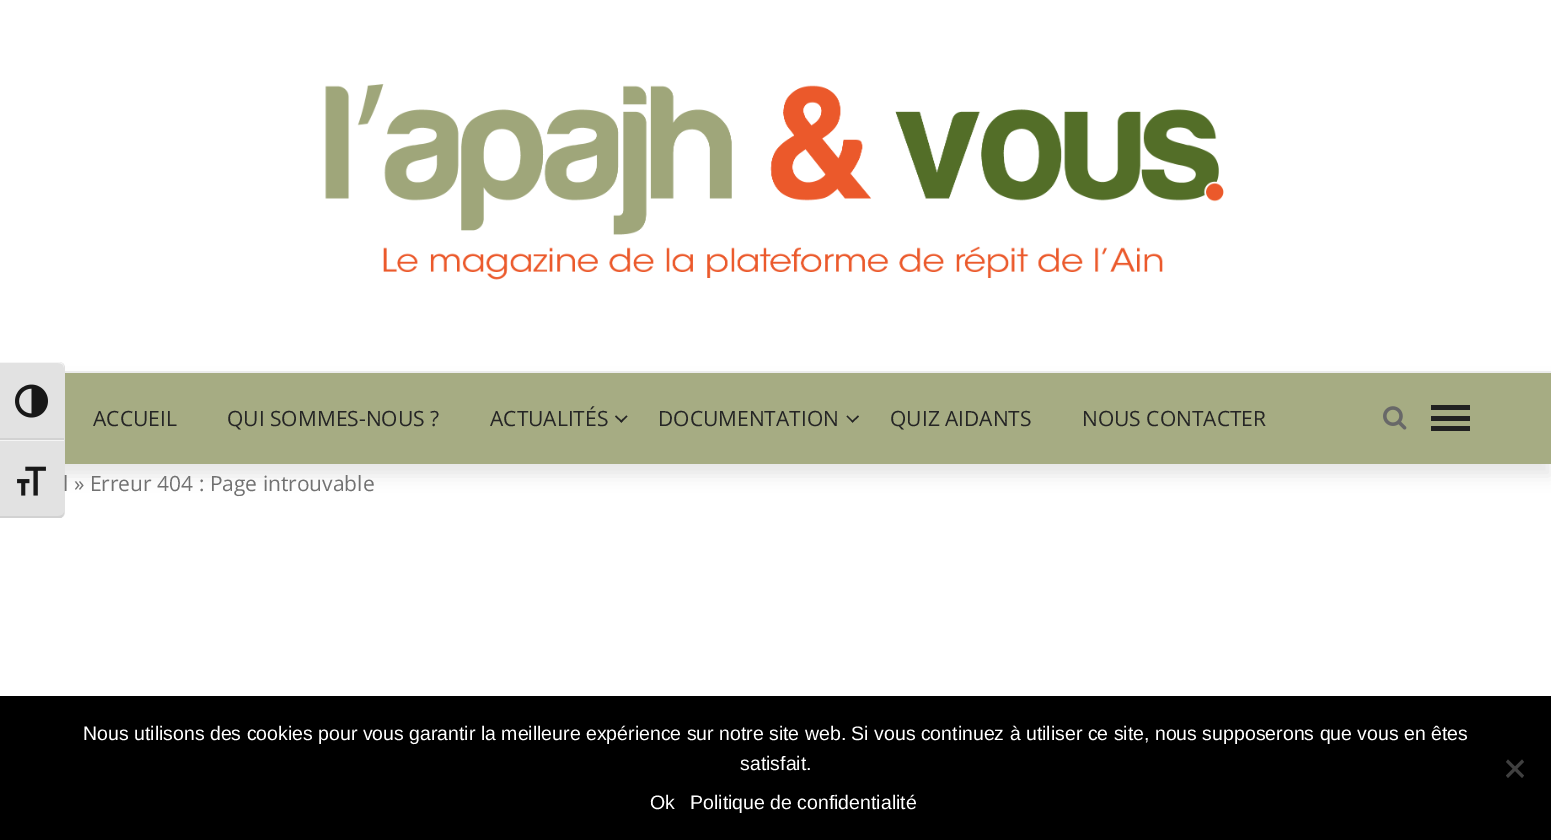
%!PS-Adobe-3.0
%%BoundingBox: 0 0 1551 840
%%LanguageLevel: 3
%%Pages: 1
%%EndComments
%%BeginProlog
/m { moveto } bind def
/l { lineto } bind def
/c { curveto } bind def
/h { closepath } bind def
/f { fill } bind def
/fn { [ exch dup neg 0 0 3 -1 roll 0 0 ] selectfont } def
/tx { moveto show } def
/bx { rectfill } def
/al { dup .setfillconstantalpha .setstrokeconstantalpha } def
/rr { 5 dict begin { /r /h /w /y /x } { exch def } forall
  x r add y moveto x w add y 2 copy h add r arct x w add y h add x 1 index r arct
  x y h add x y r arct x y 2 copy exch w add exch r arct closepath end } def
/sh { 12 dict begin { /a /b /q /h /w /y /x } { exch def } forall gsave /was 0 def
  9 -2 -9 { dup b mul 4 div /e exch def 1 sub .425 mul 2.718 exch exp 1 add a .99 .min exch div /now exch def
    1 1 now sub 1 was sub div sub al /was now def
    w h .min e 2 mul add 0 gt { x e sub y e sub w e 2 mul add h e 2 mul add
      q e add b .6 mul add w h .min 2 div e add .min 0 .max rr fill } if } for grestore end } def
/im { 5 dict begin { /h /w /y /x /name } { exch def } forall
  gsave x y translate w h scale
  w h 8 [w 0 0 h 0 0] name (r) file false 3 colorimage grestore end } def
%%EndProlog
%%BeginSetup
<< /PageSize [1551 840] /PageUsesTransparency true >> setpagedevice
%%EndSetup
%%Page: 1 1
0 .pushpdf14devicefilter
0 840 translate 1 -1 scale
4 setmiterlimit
1 setgray
0 0 1551 840 bx
0 setgray
0 383 1551 93 0 7.5 0.09 sh
0.886 setgray
0 362 m 59 362 l 62.5 362 65 364.5 65 368 c 65 440 l 0 440 l h f
0.961 setgray
0 363 m 58 363 l 62 363 64 365 64 368 c 64 364 62 362 58 362 c 0 362 l h f
0.824 setgray
0 438 64 2 bx
(image0.raw) 15 384 33 34 im
0.886 setgray
0 440 m 65 440 l 65 512 l 65 515.5 62.5 518 59 518 c 0 518 l h f
0.961 setgray
0 440 64 1 bx
0.824 setgray
61 518 m 63 517 64 514 64 512 c 64 514 62 516 58 516 c 0 516 l 0 518 l h f
(image1.raw) 17 466 29 30 im
(image2.raw) 325 84 899 196 im
0.651 0.675 0.514 setrgbcolor
65 373 1486 91 bx
0.925 setgray
65 371 1486 2 bx
/OpenSans-Regular 21 fn
0.145 setgray
(ACCUEIL) 93 426 tx
(QUI SOMMES-NOUS ?) 227 426 tx
(ACTUALITÉS) 490 426 tx
627.5 416.5 m 621.5 422.5 l 620 421.5 l 626.5 415.5 l h f
622.5 421.5 m 621.5 422.5 l 615 416.5 l 616 415.5 l h f
(DOCUMENTATION) 658 426 tx
859 416.5 m 852.5 422.5 l 851.5 421.5 l 858 415.5 l h f
853.5 421.5 m 852.5 422.5 l 846.5 416.5 l 847.5 415.5 l h f
(QUIZ AIDANTS) 890 426 tx
(NOUS CONTACTER) 1082 426 tx
(image3.raw) 1383 406 24 24 im
0.129 setgray
1431 405 39 5 bx
1431 416 39 5 bx
1431 426 39 5 bx
0.443 setgray
(l » Erreur 404 : Page introuvable) 63 491 tx
0 setgray
0 696 1551 144 bx
/LiberationSans-Regular 19.5 fn
1 setgray
(Nous utilisons des cookies pour vous garantir la meilleure expérience sur notre site web. Si vous continuez à utiliser ce site, nous supposerons que vous en êtes) 83 740 tx
(satisfait.) 740 770 tx
0.251 setgray
1522 759.5 m 1524 762 l 1508 778 l 1506 775.5 l h f
1506 762 m 1508 759.5 l 1524 775.5 l 1522 778 l h f
1 setgray
(Ok) 650 809 tx
(Politique de confidentialité) 690 809 tx
.poppdf14devicefilter showpage
%%EOF
